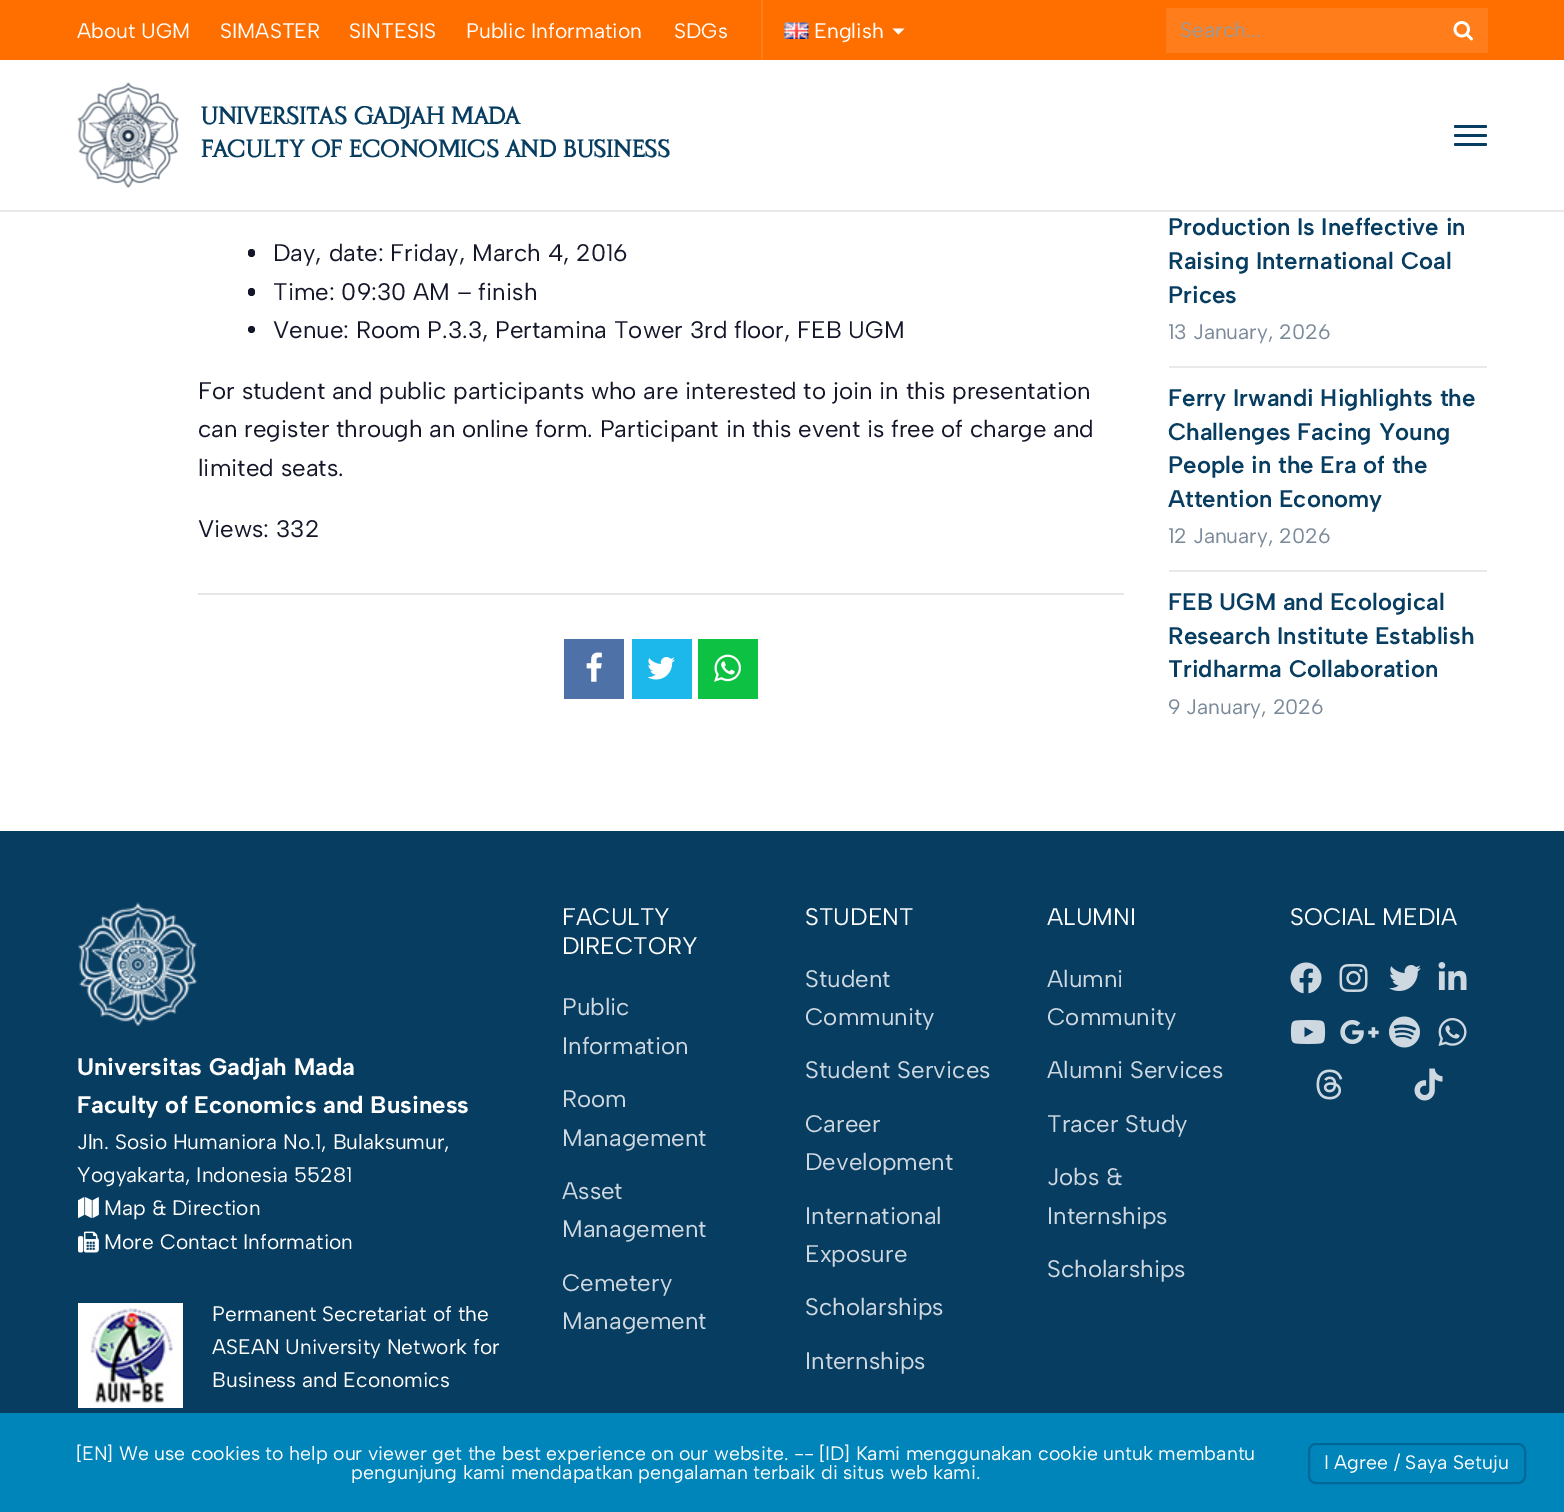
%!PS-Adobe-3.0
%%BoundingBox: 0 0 1564 1512
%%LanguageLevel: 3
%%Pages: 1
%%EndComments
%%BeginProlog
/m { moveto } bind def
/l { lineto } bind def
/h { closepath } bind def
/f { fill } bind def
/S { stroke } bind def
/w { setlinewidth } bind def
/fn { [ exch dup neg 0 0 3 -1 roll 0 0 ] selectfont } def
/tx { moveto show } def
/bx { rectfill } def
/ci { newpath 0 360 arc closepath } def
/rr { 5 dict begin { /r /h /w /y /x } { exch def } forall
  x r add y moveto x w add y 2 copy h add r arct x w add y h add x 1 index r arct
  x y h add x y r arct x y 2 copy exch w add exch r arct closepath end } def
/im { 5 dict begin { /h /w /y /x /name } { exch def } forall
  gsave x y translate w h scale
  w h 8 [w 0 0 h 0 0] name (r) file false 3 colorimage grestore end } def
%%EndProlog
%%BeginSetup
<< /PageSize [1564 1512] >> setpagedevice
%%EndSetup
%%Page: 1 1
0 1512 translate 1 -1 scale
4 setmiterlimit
1 setgray
0 0 1564 1512 bx
0.914 setgray
0 210 1564 2 bx
1 0.435 0 setrgbcolor
0 0 1564 60 bx
/AlbertSans-Regular 21 fn
1 setgray
(About UGM) 77 38 tx
(SIMASTER) 220 38 tx
(SINTESIS) 349 38 tx
(Public Information) 466 38 tx
(SDGs) 674 38 tx
1 0.49 0.102 setrgbcolor
761 0 2 60 bx
(image0.raw) 784 22 25 17 im
1 setgray
(English) 814 38 tx
892.5 28.5 m 904.5 28.5 l 898.5 34.5 l h f
1 0.49 0.102 setrgbcolor
1166 8 322 45 bx
0.6 setgray
(Search...) 1180 37 tx
(image1.raw) 1453 21 20 20 im
(image2.raw) 77 82 102 106 im
/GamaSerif-Bold 24 fn
0.031 0.239 0.384 setrgbcolor
(UNIVERSITAS GADJAH MADA) 201 124 tx
(FACULTY OF ECONOMICS AND BUSINESS) 201 157 tx
1454 125 33 3 1.5 rr f
1454 134 33 3 1.5 rr f
1454 143 33 3 1.5 rr f
0.078 0.09 0.161 setrgbcolor
248 249 7 8 3.5 rr f
/AlbertSans-Regular 24 fn
(Day, date: Friday, March 4, 2016) 273 261 tx
248 288 7 8 3.5 rr f
(Time: 09:30 AM – finish) 273 300 tx
251.5 329.5 3.5 ci f
(Venue: Room P.3.3, Pertamina Tower 3rd floor, FEB UGM) 273 338 tx
(For student and public participants who are interested to join in this presentation) 198 399 tx
(can register through an online form. Participant in this event is free of charge and) 198 437 tx
(limited seats.) 198 476 tx
(Views: 332) 198 537 tx
0.902 setgray
198 593 926 2 bx
0.306 0.443 0.659 setrgbcolor
564 639 60 60 bx
(image3.raw) 586 652 16 30 im
0.11 0.718 0.922 setrgbcolor
632 639 60 60 bx
(image4.raw) 647 657 28 23 im
0.051 0.757 0.263 setrgbcolor
698 639 60 60 bx
(image5.raw) 714 654 27 28 im
0.914 setgray
1169 366 318 2 bx
/AlbertSans-SemiBold 24 fn
0.031 0.239 0.384 setrgbcolor
(Production Is Ineffective in) 1168 235 tx
(Raising International Coal) 1168 269 tx
(Prices) 1168 303 tx
/AlbertSans-Regular 21 fn
0.478 0.541 0.6 setrgbcolor
(13 January, 2026) 1168 339 tx
0.914 setgray
1169 570 318 2 bx
/AlbertSans-SemiBold 24 fn
0.031 0.239 0.384 setrgbcolor
(Ferry Irwandi Highlights the) 1168 406 tx
(Challenges Facing Young) 1168 440 tx
(People in the Era of the) 1168 473 tx
(Attention Economy) 1168 507 tx
/AlbertSans-Regular 21 fn
0.478 0.541 0.6 setrgbcolor
(12 January, 2026) 1168 543 tx
/AlbertSans-SemiBold 24 fn
0.031 0.239 0.384 setrgbcolor
(FEB UGM and Ecological) 1168 610 tx
(Research Institute Establish) 1168 644 tx
(Tridharma Collaboration) 1168 677 tx
/AlbertSans-Regular 21 fn
0.478 0.541 0.6 setrgbcolor
(9 January, 2026) 1168 714 tx
0.031 0.239 0.384 setrgbcolor
0 831 1564 582 bx
(image6.raw) 78 902 119 124 im
/AlbertSans-Bold 24 fn
1 setgray
(Universitas Gadjah Mada) 77 1075 tx
(Faculty of Economics and Business) 77 1113 tx
/AlbertSans-Regular 20.9 fn
(Jln. Sosio Humaniora No.1, Bulaksumur,) 77 1149 tx
(Yogyakarta, Indonesia 55281) 77 1182 tx
(image7.raw) 78 1197 21 21 im
(Map & Direction) 104 1215 tx
(image8.raw) 78 1231 21 22 im
(More Contact Information) 104 1249 tx
(image9.raw) 78 1303 105 105 im
(Permanent Secretariat of the) 212 1321 tx
(ASEAN University Network for) 212 1354 tx
(Business and Economics) 212 1387 tx
/AlbertSans-Regular 24 fn
(FACULTY) 562 925 tx
(DIRECTORY) 562 954 tx
0.808 0.847 0.878 setrgbcolor
(Public) 562 1015 tx
(Information) 562 1054 tx
(Room) 562 1107 tx
(Management) 562 1146 tx
(Asset) 562 1199 tx
(Management) 562 1237 tx
(Cemetery) 562 1291 tx
(Management) 562 1329 tx
1 setgray
(STUDENT) 805 925 tx
0.808 0.847 0.878 setrgbcolor
(Student) 805 987 tx
(Community) 805 1025 tx
(Student Services) 805 1078 tx
(Career) 805 1132 tx
(Development) 805 1170 tx
(International) 805 1224 tx
(Exposure) 805 1262 tx
(Scholarships) 805 1315 tx
(Internships) 805 1369 tx
1 setgray
(ALUMNI) 1047 925 tx
0.808 0.847 0.878 setrgbcolor
(Alumni) 1047 987 tx
(Community) 1047 1025 tx
(Alumni Services) 1047 1078 tx
(Tracer Study) 1047 1132 tx
(Jobs &) 1047 1185 tx
(Internships) 1047 1224 tx
(Scholarships) 1047 1277 tx
1 setgray
(SOCIAL MEDIA) 1290 925 tx
(image10.raw) 1290 962 32 32 im
(image11.raw) 1339 963 29 29 im
(image12.raw) 1389 965 32 26 im
(image13.raw) 1438 962 29 28 im
(image14.raw) 1290 1020 36 24 im
(image15.raw) 1340 1020 39 24 im
(image16.raw) 1389 1016 31 32 im
(image17.raw) 1438 1018 29 28 im
(image18.raw) 1316 1069 27 31 im
(image19.raw) 1414 1068 29 33 im
0 0.522 0.729 setrgbcolor
0 1413 1564 99 bx
/AlbertSans-Regular 19.5 fn
1 setgray
([EN] We use cookies to help our viewer get the best experience on our website. -- [ID] Kami menggunakan cookie untuk membantu) 76 1460 tx
(pengunjung kami mendapatkan pengalaman terbaik di situs web kami.) 351 1479 tx
0 0.404 0.6 setrgbcolor
2 w
1309 1444 216 39 7 rr S
1 setgray
(I Agree / Saya Setuju) 1324 1469 tx
showpage
%%EOF
